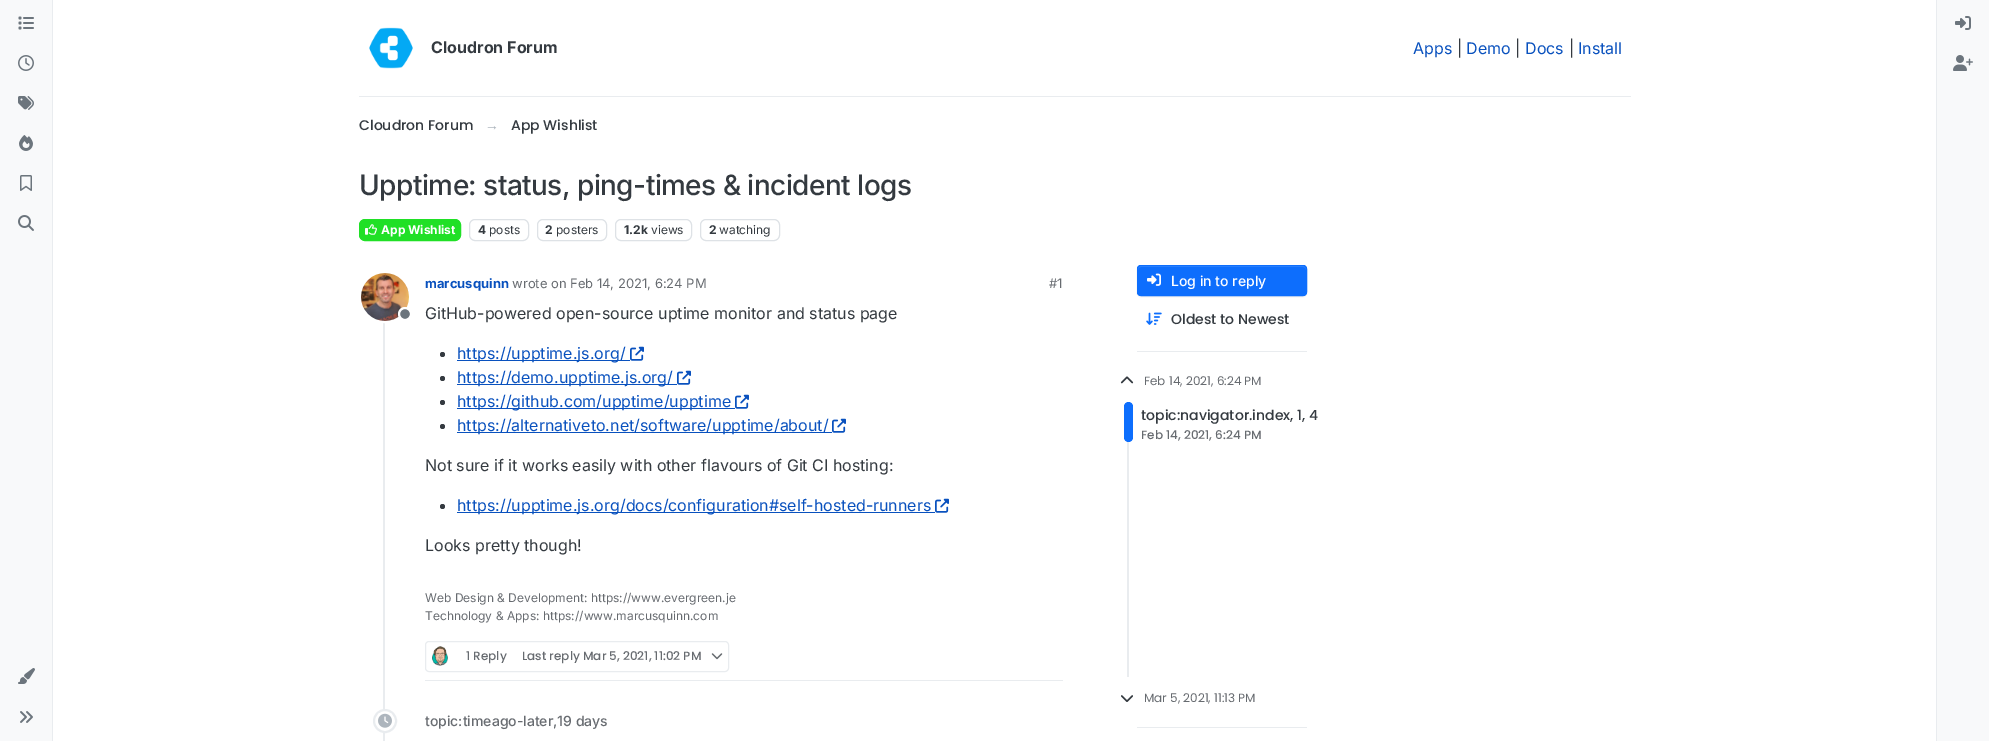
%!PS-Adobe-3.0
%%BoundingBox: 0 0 1989 741
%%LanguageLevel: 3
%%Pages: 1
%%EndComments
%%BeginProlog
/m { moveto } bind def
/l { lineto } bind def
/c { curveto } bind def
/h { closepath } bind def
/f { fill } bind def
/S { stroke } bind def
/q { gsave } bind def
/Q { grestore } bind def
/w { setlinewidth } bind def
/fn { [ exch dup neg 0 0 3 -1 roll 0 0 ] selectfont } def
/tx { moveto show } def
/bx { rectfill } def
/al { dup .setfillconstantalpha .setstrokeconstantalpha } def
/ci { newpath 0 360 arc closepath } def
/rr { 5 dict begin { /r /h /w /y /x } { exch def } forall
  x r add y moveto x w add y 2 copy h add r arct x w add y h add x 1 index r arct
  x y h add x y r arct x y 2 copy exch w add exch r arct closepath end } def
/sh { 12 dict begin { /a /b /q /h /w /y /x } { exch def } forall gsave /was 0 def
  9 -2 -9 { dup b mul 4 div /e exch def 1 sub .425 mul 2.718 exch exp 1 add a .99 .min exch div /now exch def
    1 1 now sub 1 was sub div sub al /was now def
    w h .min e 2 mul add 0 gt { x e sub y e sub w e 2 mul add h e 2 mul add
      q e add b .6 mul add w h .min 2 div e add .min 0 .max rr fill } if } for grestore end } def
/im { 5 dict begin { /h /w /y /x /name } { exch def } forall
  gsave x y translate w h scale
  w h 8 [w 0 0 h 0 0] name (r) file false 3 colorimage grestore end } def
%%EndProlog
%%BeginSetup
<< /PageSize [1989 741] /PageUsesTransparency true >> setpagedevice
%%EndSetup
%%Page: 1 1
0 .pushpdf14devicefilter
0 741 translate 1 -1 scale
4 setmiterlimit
1 setgray
0 0 1989 741 bx
0.973 0.976 0.98 setrgbcolor
0 0 52 741 bx
0.914 0.925 0.937 setrgbcolor
52 0 1 741 bx
(image0.raw) 18 16 16 14 im
(image1.raw) 18 55 16 16 im
(image2.raw) 18 96 16 14 im
(image3.raw) 19 135 14 16 im
(image4.raw) 20 175 12 16 im
(image5.raw) 18 215 16 16 im
(image6.raw) 18 668 17 16 im
(image7.raw) 20 711 13 12 im
359 96 1272 1 bx
(image8.raw) 369 27 44 42 im
/Inter-Bold 16 fn
0.204 0.227 0.251 setrgbcolor
(Cloudron Forum) 431 53 tx
/Inter-Regular 16 fn
0.035 0.318 0.745 setrgbcolor
(Apps) 1413 54 tx
0.204 0.227 0.251 setrgbcolor
(|) 1457 54 tx
0.035 0.318 0.745 setrgbcolor
(Demo) 1466 54 tx
0.204 0.227 0.251 setrgbcolor
(|) 1515 54 tx
0.035 0.318 0.745 setrgbcolor
(Docs) 1525 54 tx
0.204 0.227 0.251 setrgbcolor
(|) 1569 54 tx
0.035 0.318 0.745 setrgbcolor
(Install) 1578 54 tx
/Poppins-Medium 14 fn
0.204 0.227 0.251 setrgbcolor
(Cloudron Forum) 359 130 tx
/LiberationSans-Regular 14 fn
0.678 0.71 0.741 setrgbcolor
(→) 485 130 tx
/Poppins-Medium 14 fn
0.204 0.227 0.251 setrgbcolor
(App Wishlist) 511 130 tx
/Inter-Medium 28 fn
359 195 m -0.55 0 (Upptime: status, ping-times & incident logs) ashow
0.125 0.878 0.149 setrgbcolor
359.5 219.5 101 21 5.5 rr q f Q
S
(image9.raw) 365 224 12 11 im
/Inter-Bold 12 fn
1 setgray
(App Wishlist) 381 234 tx
0.871 0.886 0.902 setrgbcolor
469.5 219.5 59 21 5.5 rr S
0.204 0.227 0.251 setrgbcolor
(4) 478 234 tx
/Inter-Regular 12 fn
(posts) 489 234 tx
0.871 0.886 0.902 setrgbcolor
537.5 219.5 69 21 5.5 rr S
/Inter-Bold 12 fn
0.204 0.227 0.251 setrgbcolor
(2) 545 234 tx
/Inter-Regular 12 fn
(posters) 556 234 tx
0.871 0.886 0.902 setrgbcolor
615.5 219.5 76 21 5.5 rr S
/Inter-Bold 12 fn
0.204 0.227 0.251 setrgbcolor
(1.2k) 624 234 tx
/Inter-Regular 12 fn
(views) 651 234 tx
0.871 0.886 0.902 setrgbcolor
700.5 219.5 79 21 5.5 rr S
/Inter-Bold 12 fn
0.204 0.227 0.251 setrgbcolor
(2) 709 234 tx
/Inter-Regular 12 fn
(watching) 719 234 tx
0.914 0.925 0.937 setrgbcolor
383 273 2 468 bx
1 setgray
2 w
385 297 25 ci S
(image10.raw) 361 273 48 48 im
0.424 0.459 0.49 setrgbcolor
405 314 6 ci q f Q
1 setgray
S
/Inter-Bold 13 fn
0.035 0.318 0.745 setrgbcolor
(marcusquinn) 425 288 tx
/Inter-Regular 13 fn
0.404 0.42 0.439 setrgbcolor
(wrote on Feb 14, 2021, 6:24 PM) 512 288 tx
(#1) 1049 288 tx
/Inter-Regular 16 fn
0.204 0.227 0.251 setrgbcolor
(GitHub-powered open-source uptime monitor and status page) 425 319 tx
442.5 354.5 2.5 ci f
0.035 0.318 0.745 setrgbcolor
457 360 173 1 bx
(https://upptime.js.org/) 457 359 tx
(image11.raw) 630 346 14 15 im
0.204 0.227 0.251 setrgbcolor
442.5 378.5 2.5 ci f
0.035 0.318 0.745 setrgbcolor
457 384 215 1 bx
(https://demo.upptime.js.org/) 457 383 tx
672 384 5 1 bx
(image11.raw) 677 370 14 15 im
0.204 0.227 0.251 setrgbcolor
442.5 402.5 2.5 ci f
0.035 0.318 0.745 setrgbcolor
457 408 278 1 bx
(https://github.com/upptime/upptime) 457 407 tx
(image11.raw) 735 394 14 15 im
0.204 0.227 0.251 setrgbcolor
442.5 426.5 2.5 ci f
0.035 0.318 0.745 setrgbcolor
457 432 375 1 bx
(https://alternativeto.net/software/upptime/about/) 457 431 tx
(image11.raw) 832 418 14 15 im
0.204 0.227 0.251 setrgbcolor
(Not sure if it works easily with other flavours of Git CI hosting:) 425 471 tx
442.5 506.5 2.5 ci f
0.035 0.318 0.745 setrgbcolor
457 512 478 1 bx
(https://upptime.js.org/docs/configuration#self-hosted-runners) 457 511 tx
(image11.raw) 935 498 14 15 im
0.204 0.227 0.251 setrgbcolor
(Looks pretty though!) 425 551 tx
0.914 0.925 0.937 setrgbcolor
425 680 638 1 bx
/Inter-Regular 12 fn
0.404 0.42 0.439 setrgbcolor
(Web Design & Development: https://www.evergreen.je) 425 602 tx
(Technology & Apps: https://www.marcusquinn.com) 425 620 tx
0.914 0.925 0.937 setrgbcolor
1 w
425.5 641.5 303 30 3.5 rr S
(image12.raw) 432 646 16 20 im
/Poppins-Medium 12 fn
0.404 0.42 0.439 setrgbcolor
(1 Reply) 466 660 tx
(Last reply Mar 5, 2021, 11:02 PM) 522 660 tx
(image13.raw) 711 653 12 7 im
1 setgray
385 721 11 ci q f Q
0.914 0.925 0.937 setrgbcolor
2 w
S
(image14.raw) 378 713 14 15 im
/Inter-Medium 14 fn
0.404 0.42 0.439 setrgbcolor
(topic:timeago-later,19 days) 425 726 tx
0 setgray
1137 266 170 31 4 0.5 0.07 sh
0.051 0.431 0.992 setrgbcolor
1137 265 170 31 4 rr f
0.192 0.518 0.992 setrgbcolor
1141 267 m 1303 267 l 1305 267 1306 268 1306 270 c 1306 269 l 1306 267 1305 266 1303 266 c 1141 266 l 1139 266 1138 267 1138 269 c 1138 270 l 1138 268 1139 267 1141 267 c h f
0.051 0.431 0.992 setrgbcolor
1 w
1137.5 265.5 169 30 3.5 rr S
(image15.raw) 1147 273 14 13 im
1 setgray
(Log in to reply) 1171 286 tx
(image16.raw) 1146 312 16 13 im
/Poppins-Medium 14 fn
0.204 0.227 0.251 setrgbcolor
(Oldest to Newest) 1171 324 tx
0.914 0.925 0.937 setrgbcolor
1137 351 170 1 bx
(image17.raw) 1120 376 14 8 im
/Poppins-Regular 12 fn
0.404 0.42 0.439 setrgbcolor
(Feb 14, 2021, 6:24 PM) 1144 385 tx
0.914 0.925 0.937 setrgbcolor
1127 402 2 275 bx
0.051 0.431 0.992 setrgbcolor
1124 402 9 40 4.5 rr f
/Poppins-Medium 14 fn
0.204 0.227 0.251 setrgbcolor
(topic:navigator.index, 1, 4) 1141 420 tx
/Poppins-Medium 12 fn
0.404 0.42 0.439 setrgbcolor
(Feb 14, 2021, 6:24 PM) 1141 439 tx
(image18.raw) 1121 695 12 7 im
/Poppins-Regular 12 fn
(Mar 5, 2021, 11:13 PM) 1144 702 tx
0.914 0.925 0.937 setrgbcolor
1137 727 170 1 bx
0.973 0.976 0.98 setrgbcolor
1937 0 52 741 bx
0.914 0.925 0.937 setrgbcolor
1936 0 1 741 bx
(image19.raw) 1955 16 16 14 im
(image20.raw) 1953 55 20 16 im
.poppdf14devicefilter showpage
%%EOF
